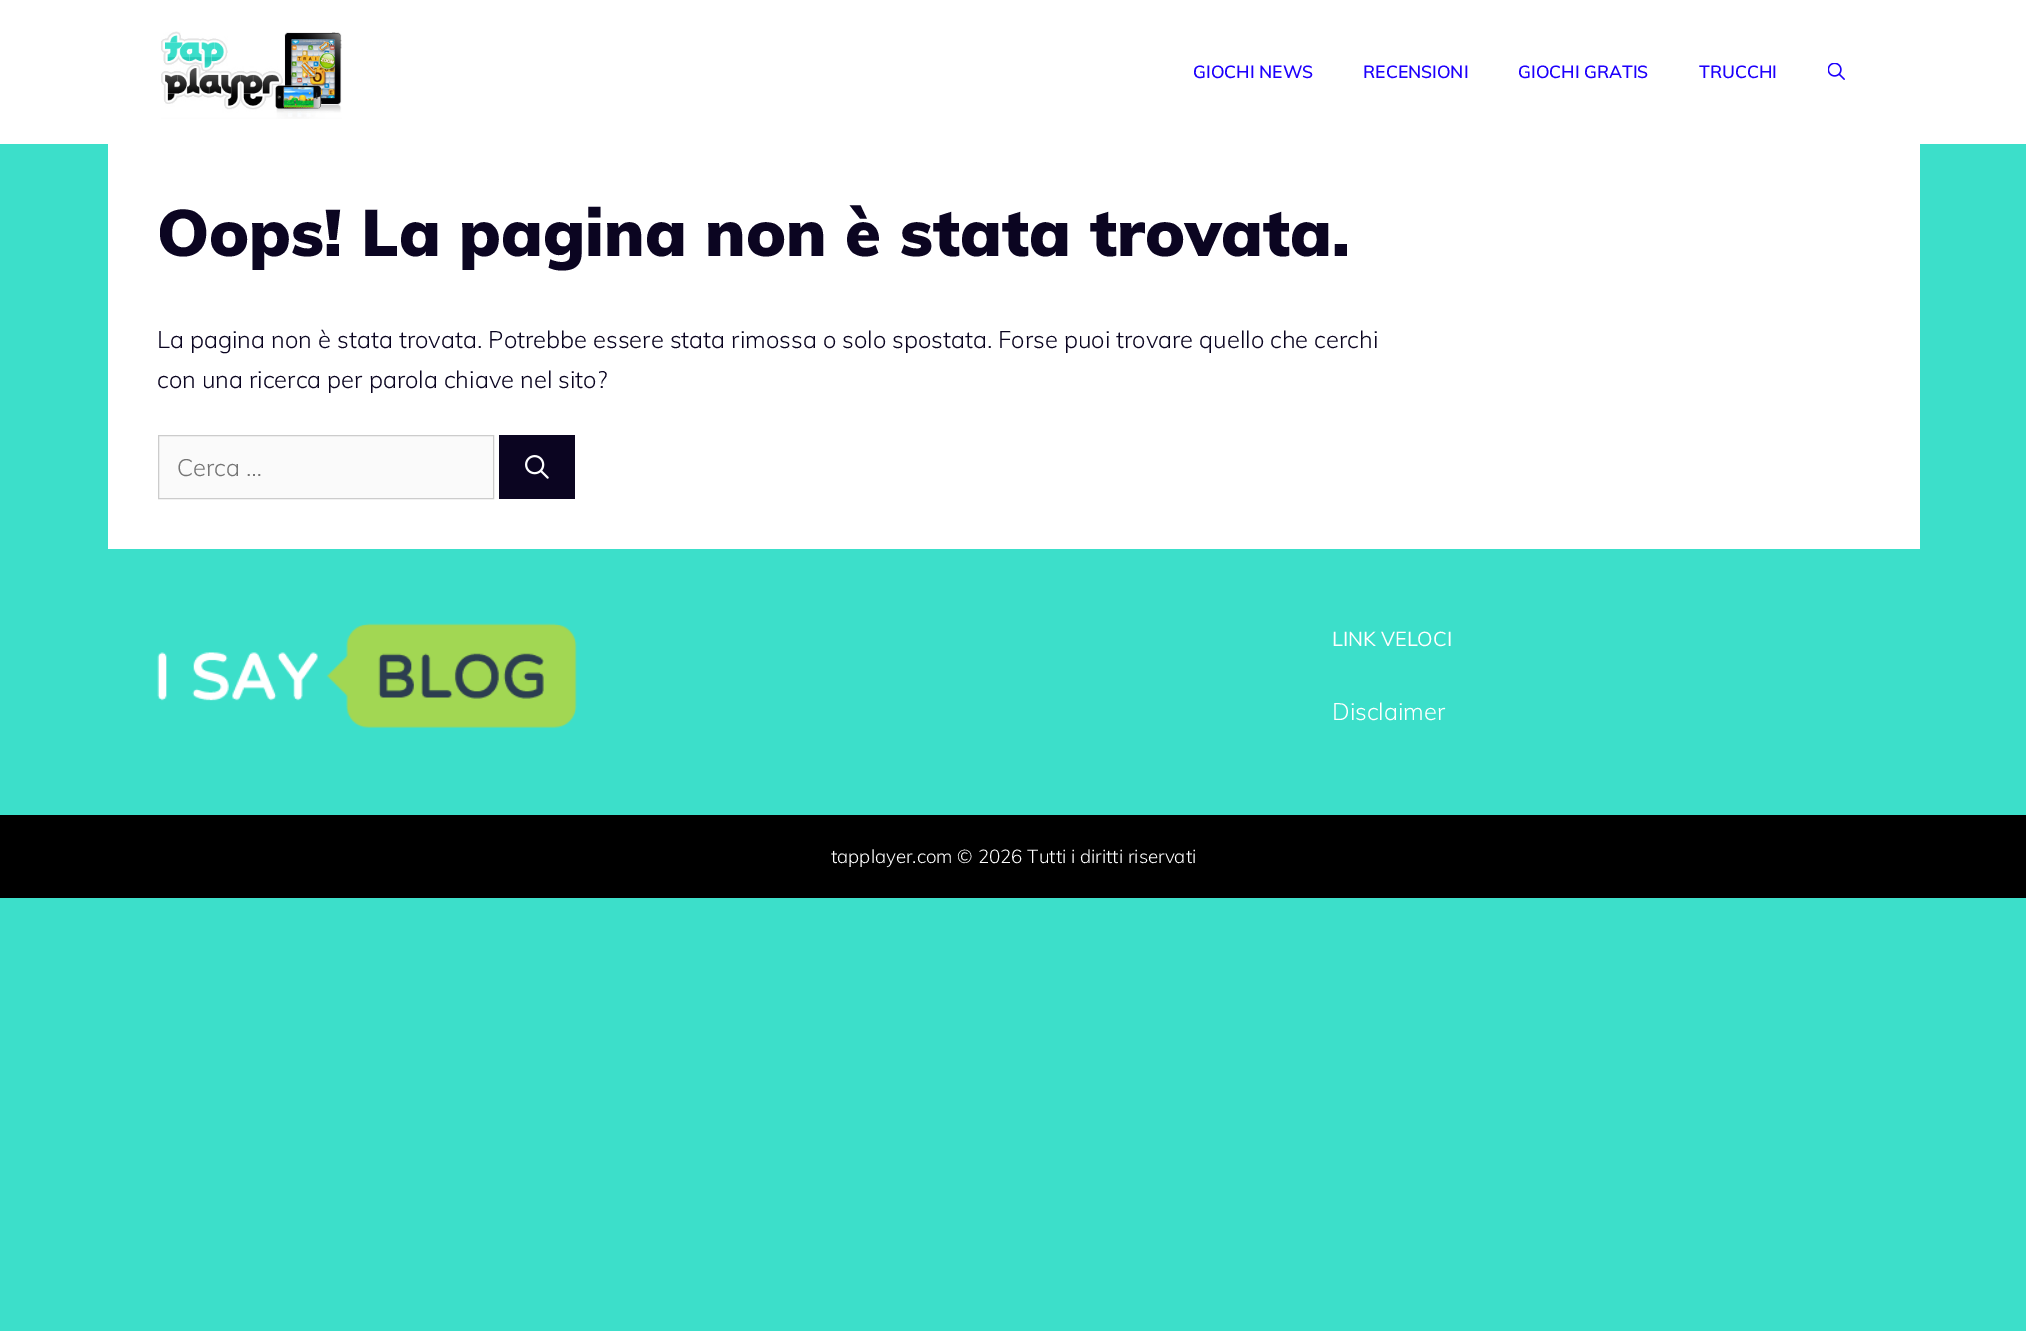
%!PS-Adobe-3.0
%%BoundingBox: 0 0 2026 1331
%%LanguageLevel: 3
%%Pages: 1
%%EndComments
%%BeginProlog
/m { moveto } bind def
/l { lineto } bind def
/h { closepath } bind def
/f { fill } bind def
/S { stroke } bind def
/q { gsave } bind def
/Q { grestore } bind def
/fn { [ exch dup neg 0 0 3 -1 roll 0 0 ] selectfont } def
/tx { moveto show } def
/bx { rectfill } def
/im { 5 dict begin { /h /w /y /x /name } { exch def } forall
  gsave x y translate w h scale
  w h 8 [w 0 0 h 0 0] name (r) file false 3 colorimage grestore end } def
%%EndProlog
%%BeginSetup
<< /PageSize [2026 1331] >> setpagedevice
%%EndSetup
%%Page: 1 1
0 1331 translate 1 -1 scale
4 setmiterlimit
0.235 0.875 0.792 setrgbcolor
0 0 2026 1331 bx
1 setgray
0 0 2026 144 bx
(image0.raw) 161 31 181 88 im
/Muli-SemiBold 17.5 fn
0.114 0 0.988 setrgbcolor
(GIOCHI NEWS) 1193 78 tx
(RECENSIONI) 1363 78 tx
(GIOCHI GRATIS) 1518 78 tx
(TRUCCHI) 1699 78 tx
(image1.raw) 1828 63 17 17 im
1 setgray
108 144 1812 405 bx
/Muli-Black 65 fn
0.043 0.02 0.129 setrgbcolor
(Oops! La pagina non è stata trovata.) 157 256 tx
/Muli-Light 23.75 fn
(La pagina non è stata trovata. Potrebbe essere stata rimossa o solo spostata. Forse puoi trovare quello che cerchi) 157 348 tx
(con una ricerca per parola chiave nel sito?) 157 388 tx
0.98 setgray
158.5 435.5 m 493.5 435.5 l 493.5 498.5 l 158.5 498.5 l h q f Q
0.8 setgray
S
0.459 setgray
(Cerca …) 177 476 tx
0.043 0.02 0.129 setrgbcolor
499 435 76 64 bx
(image2.raw) 525 455 24 24 im
(image3.raw) 157 623 420 105 im
/Muli-Regular 20 fn
1 setgray
(LINK VELOCI) 1332 646 tx
/Muli-Light 23.75 fn
(Disclaimer) 1332 720 tx
0 setgray
0 815 2026 83 bx
/Muli-Light 18.75 fn
1 setgray
(tapplayer.com © 2026 Tutti i diritti riservati) 831 863 tx
showpage
%%EOF
